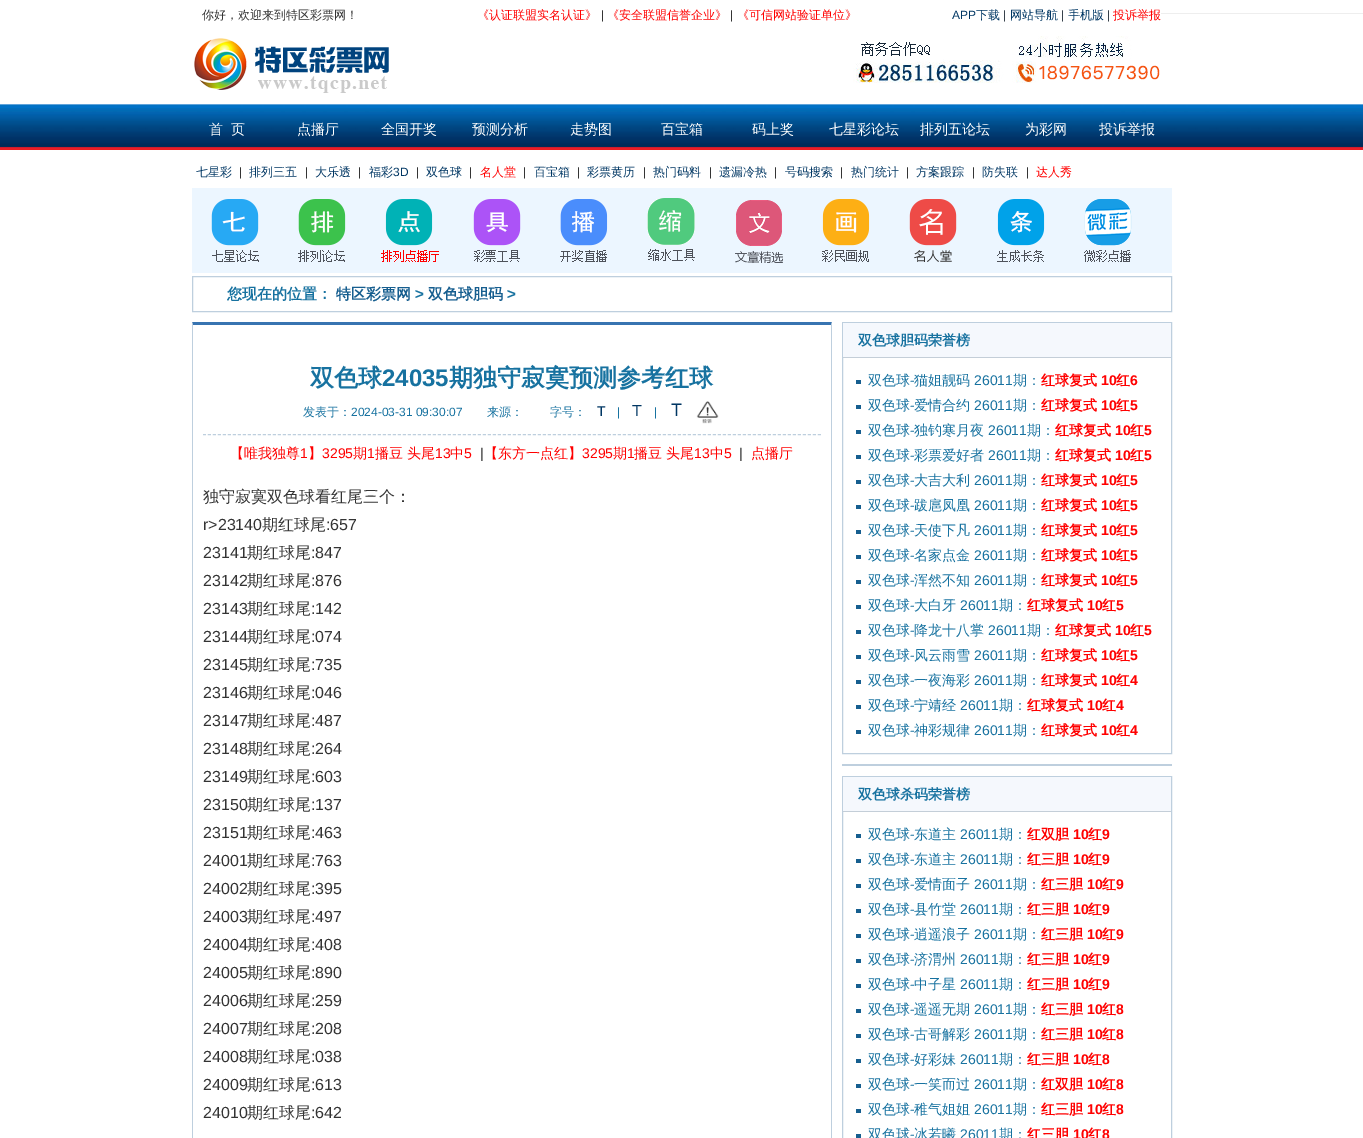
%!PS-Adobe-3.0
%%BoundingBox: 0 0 1363 1138
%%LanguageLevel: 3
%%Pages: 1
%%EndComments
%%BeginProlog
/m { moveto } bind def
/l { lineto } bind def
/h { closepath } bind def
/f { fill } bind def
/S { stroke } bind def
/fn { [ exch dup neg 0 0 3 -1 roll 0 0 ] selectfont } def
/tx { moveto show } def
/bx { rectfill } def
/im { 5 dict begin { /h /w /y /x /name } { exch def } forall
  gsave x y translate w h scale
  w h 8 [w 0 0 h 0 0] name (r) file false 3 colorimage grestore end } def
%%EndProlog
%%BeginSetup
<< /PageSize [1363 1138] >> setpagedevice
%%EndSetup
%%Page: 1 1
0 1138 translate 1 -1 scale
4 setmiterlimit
1 setgray
0 0 1363 1138 bx
/WenQuanYiZenHei-Medium 12 fn
0.204 setgray
(你好，欢迎来到特区彩票网！) 202 19 tx
1 0 0 setrgbcolor
(《认证联盟实名认证》) 477 19 tx
/LiberationSans-Regular 12 fn
0.204 setgray
(|) 601 19 tx
/WenQuanYiZenHei-Medium 12 fn
1 0 0 setrgbcolor
(《安全联盟信誉企业》) 607 19 tx
/LiberationSans-Regular 12 fn
0.204 setgray
(|) 730 19 tx
/WenQuanYiZenHei-Medium 12 fn
1 0 0 setrgbcolor
(《可信网站验证单位》) 737 19 tx
/LiberationSans-Regular 12 fn
0 0.212 0.388 setrgbcolor
(APP) 952 19 tx
/WenQuanYiZenHei-Medium 12 fn
(下载) 976 19 tx
/LiberationSans-Regular 12 fn
0.216 0.255 0.294 setrgbcolor
(|) 1003 19 tx
/WenQuanYiZenHei-Medium 12 fn
0 0.212 0.388 setrgbcolor
(网站导航) 1010 19 tx
/LiberationSans-Regular 12 fn
0.216 0.255 0.294 setrgbcolor
(|) 1061 19 tx
/WenQuanYiZenHei-Medium 12 fn
0 0.212 0.388 setrgbcolor
(手机版) 1068 19 tx
/LiberationSans-Regular 12 fn
0.216 0.255 0.294 setrgbcolor
(|) 1107 19 tx
/WenQuanYiZenHei-Medium 12 fn
1 0 0 setrgbcolor
(投诉举报) 1113 19 tx
0.933 setgray
1161 13 202 1 bx
(image0.raw) 194 38 195 55 im
(image1.raw) 853 36 307 47 im
(image2.raw) 0 104 1363 46 im
/WenQuanYiZenHei-Medium 14 fn
1 setgray
(首) 209 134 tx
(页) 231 134 tx
(点播厅) 297 134 tx
(全国开奖) 381 134 tx
(预测分析) 472 134 tx
(走势图) 570 134 tx
(百宝箱) 661 134 tx
(码上奖) 752 134 tx
(七星彩论坛) 829 134 tx
(排列五论坛) 920 134 tx
(为彩网) 1025 134 tx
(投诉举报) 1099 134 tx
/WenQuanYiZenHei-Medium 12 fn
0 0.212 0.388 setrgbcolor
(七星彩) 196 176 tx
/LiberationSans-Regular 12 fn
0.204 setgray
(|) 239 176 tx
/WenQuanYiZenHei-Medium 12 fn
0 0.212 0.388 setrgbcolor
(排列三五) 249 176 tx
/LiberationSans-Regular 12 fn
0.204 setgray
(|) 305 176 tx
/WenQuanYiZenHei-Medium 12 fn
0 0.212 0.388 setrgbcolor
(大乐透) 315 176 tx
/LiberationSans-Regular 12 fn
0.204 setgray
(|) 358 176 tx
/WenQuanYiZenHei-Medium 12 fn
0 0.212 0.388 setrgbcolor
(福彩) 369 176 tx
/LiberationSans-Regular 12 fn
(3D) 393 176 tx
0.204 setgray
(|) 416 176 tx
/WenQuanYiZenHei-Medium 12 fn
0 0.212 0.388 setrgbcolor
(双色球) 426 176 tx
/LiberationSans-Regular 12 fn
0.204 setgray
(|) 469 176 tx
/WenQuanYiZenHei-Medium 12 fn
1 0 0 setrgbcolor
(名人堂) 480 176 tx
/LiberationSans-Regular 12 fn
0.204 setgray
(|) 523 176 tx
/WenQuanYiZenHei-Medium 12 fn
0 0.212 0.388 setrgbcolor
(百宝箱) 534 176 tx
/LiberationSans-Regular 12 fn
0.204 setgray
(|) 577 176 tx
/WenQuanYiZenHei-Medium 12 fn
0 0.212 0.388 setrgbcolor
(彩票黄历) 587 176 tx
/LiberationSans-Regular 12 fn
0.204 setgray
(|) 643 176 tx
/WenQuanYiZenHei-Medium 12 fn
0 0.212 0.388 setrgbcolor
(热门码料) 653 176 tx
/LiberationSans-Regular 12 fn
0.204 setgray
(|) 709 176 tx
/WenQuanYiZenHei-Medium 12 fn
0 0.212 0.388 setrgbcolor
(遗漏冷热) 719 176 tx
/LiberationSans-Regular 12 fn
0.204 setgray
(|) 774 176 tx
/WenQuanYiZenHei-Medium 12 fn
0 0.212 0.388 setrgbcolor
(号码搜索) 785 176 tx
/LiberationSans-Regular 12 fn
0.204 setgray
(|) 840 176 tx
/WenQuanYiZenHei-Medium 12 fn
0 0.212 0.388 setrgbcolor
(热门统计) 851 176 tx
/LiberationSans-Regular 12 fn
0.204 setgray
(|) 906 176 tx
/WenQuanYiZenHei-Medium 12 fn
0 0.212 0.388 setrgbcolor
(方案跟踪) 916 176 tx
/LiberationSans-Regular 12 fn
0.204 setgray
(|) 972 176 tx
/WenQuanYiZenHei-Medium 12 fn
0 0.212 0.388 setrgbcolor
(防失联) 982 176 tx
/LiberationSans-Regular 12 fn
0.204 setgray
(|) 1026 176 tx
/WenQuanYiZenHei-Medium 12 fn
1 0 0 setrgbcolor
(达人秀) 1036 176 tx
0.925 0.965 1 setrgbcolor
192 188 980 85 bx
(image3.raw) 211 199 48 63 im
(image4.raw) 298 199 48 63 im
(image5.raw) 381 199 58 63 im
(image6.raw) 473 199 48 63 im
(image7.raw) 560 199 48 63 im
(image8.raw) 647 198 48 63 im
(image9.raw) 735 200 48 63 im
(image10.raw) 822 199 48 63 im
(image11.raw) 909 199 48 63 im
(image12.raw) 997 199 48 63 im
(image13.raw) 1084 199 48 63 im
0.745 0.812 0.871 setrgbcolor
192.5 276.5 979 35 rectstroke
/WenQuanYiZenHei-Bold 15 fn
0.09 0.447 0.627 setrgbcolor
(您现在的位置：) 227 299 tx
0.086 0.369 0.561 setrgbcolor
(特区彩票网) 336 299 tx
/LiberationSans-Bold 15 fn
0.09 0.447 0.627 setrgbcolor
(>) 415 299 tx
/WenQuanYiZenHei-Bold 15 fn
0.086 0.369 0.561 setrgbcolor
(双色球胆码) 428 299 tx
/LiberationSans-Bold 15 fn
0.09 0.447 0.627 setrgbcolor
(>) 507 299 tx
0.22 0.455 0.694 setrgbcolor
192 322 m 832 322 l 831 325 l 193 325 l h f
0.745 0.812 0.871 setrgbcolor
832 322 m 832 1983 l 831 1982 l 831 325 l h f
192 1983 m 192 322 l 193 325 l 193 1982 l h f
[3 2] 0 setdash
203 434.5 m 821 434.5 l S
/WenQuanYiZenHei-Bold 24 fn
0.09 0.447 0.627 setrgbcolor
(双色球) 310 386 tx
/LiberationSans-Bold 24 fn
(24035) 382 386 tx
/WenQuanYiZenHei-Bold 24 fn
(期独守寂寞预测参考红球) 449 386 tx
/WenQuanYiZenHei-Medium 12 fn
(发表于：) 303 416 tx
/LiberationSans-Regular 12 fn
(2024-03-31 09:30:07) 351 416 tx
/WenQuanYiZenHei-Medium 12 fn
(来源：) 487 416 tx
(字号：) 550 416 tx
/LiberationSans-Regular 14 fn
0 0.212 0.388 setrgbcolor
(T) 597 416 tx
/LiberationSans-Regular 12 fn
0.09 0.447 0.627 setrgbcolor
(|) 617 416 tx
/LiberationSans-Regular 16 fn
0 0.212 0.388 setrgbcolor
(T) 632 416 tx
/LiberationSans-Regular 12 fn
0.09 0.447 0.627 setrgbcolor
(|) 654 416 tx
/LiberationSans-Regular 18 fn
0 0.212 0.388 setrgbcolor
(T) 671 416 tx
(image14.raw) 696 401 23 23 im
/WenQuanYiZenHei-Medium 14 fn
1 0 0 setrgbcolor
(【唯我独尊) 230 458 tx
/LiberationSans-Regular 14 fn
(1) 300 458 tx
/WenQuanYiZenHei-Medium 14 fn
(】) 308 458 tx
/LiberationSans-Regular 14 fn
(3295) 322 458 tx
/WenQuanYiZenHei-Medium 14 fn
(期) 353 458 tx
/LiberationSans-Regular 14 fn
(1) 367 458 tx
/WenQuanYiZenHei-Medium 14 fn
(播豆 头尾) 375 458 tx
/LiberationSans-Regular 14 fn
(13) 435 458 tx
/WenQuanYiZenHei-Medium 14 fn
(中) 450 458 tx
/LiberationSans-Regular 14 fn
(5) 464 458 tx
0.204 setgray
(|) 480 458 tx
/WenQuanYiZenHei-Medium 14 fn
1 0 0 setrgbcolor
(【东方一点红】) 484 458 tx
/LiberationSans-Regular 14 fn
(3295) 582 458 tx
/WenQuanYiZenHei-Medium 14 fn
(期) 613 458 tx
/LiberationSans-Regular 14 fn
(1) 627 458 tx
/WenQuanYiZenHei-Medium 14 fn
(播豆 头尾) 634 458 tx
/LiberationSans-Regular 14 fn
(13) 694 458 tx
/WenQuanYiZenHei-Medium 14 fn
(中) 710 458 tx
/LiberationSans-Regular 14 fn
(5) 724 458 tx
0.204 setgray
(|) 739 458 tx
/WenQuanYiZenHei-Medium 14 fn
1 0 0 setrgbcolor
(点播厅) 751 458 tx
/WenQuanYiZenHei-Medium 16 fn
0.204 setgray
(独守寂寞双色球看红尾三个：) 203 502 tx
/LiberationSans-Regular 16 fn
(r>23140) 203 530 tx
/WenQuanYiZenHei-Medium 16 fn
(期红球尾) 262 530 tx
/LiberationSans-Regular 16 fn
(:657) 326 530 tx
(23141) 203 558 tx
/WenQuanYiZenHei-Medium 16 fn
(期红球尾) 247 558 tx
/LiberationSans-Regular 16 fn
(:847) 311 558 tx
(23142) 203 586 tx
/WenQuanYiZenHei-Medium 16 fn
(期红球尾) 247 586 tx
/LiberationSans-Regular 16 fn
(:876) 311 586 tx
(23143) 203 614 tx
/WenQuanYiZenHei-Medium 16 fn
(期红球尾) 247 614 tx
/LiberationSans-Regular 16 fn
(:142) 311 614 tx
(23144) 203 642 tx
/WenQuanYiZenHei-Medium 16 fn
(期红球尾) 247 642 tx
/LiberationSans-Regular 16 fn
(:074) 311 642 tx
(23145) 203 670 tx
/WenQuanYiZenHei-Medium 16 fn
(期红球尾) 247 670 tx
/LiberationSans-Regular 16 fn
(:735) 311 670 tx
(23146) 203 698 tx
/WenQuanYiZenHei-Medium 16 fn
(期红球尾) 247 698 tx
/LiberationSans-Regular 16 fn
(:046) 311 698 tx
(23147) 203 726 tx
/WenQuanYiZenHei-Medium 16 fn
(期红球尾) 247 726 tx
/LiberationSans-Regular 16 fn
(:487) 311 726 tx
(23148) 203 754 tx
/WenQuanYiZenHei-Medium 16 fn
(期红球尾) 247 754 tx
/LiberationSans-Regular 16 fn
(:264) 311 754 tx
(23149) 203 782 tx
/WenQuanYiZenHei-Medium 16 fn
(期红球尾) 247 782 tx
/LiberationSans-Regular 16 fn
(:603) 311 782 tx
(23150) 203 810 tx
/WenQuanYiZenHei-Medium 16 fn
(期红球尾) 247 810 tx
/LiberationSans-Regular 16 fn
(:137) 311 810 tx
(23151) 203 838 tx
/WenQuanYiZenHei-Medium 16 fn
(期红球尾) 247 838 tx
/LiberationSans-Regular 16 fn
(:463) 311 838 tx
(24001) 203 866 tx
/WenQuanYiZenHei-Medium 16 fn
(期红球尾) 247 866 tx
/LiberationSans-Regular 16 fn
(:763) 311 866 tx
(24002) 203 894 tx
/WenQuanYiZenHei-Medium 16 fn
(期红球尾) 247 894 tx
/LiberationSans-Regular 16 fn
(:395) 311 894 tx
(24003) 203 922 tx
/WenQuanYiZenHei-Medium 16 fn
(期红球尾) 247 922 tx
/LiberationSans-Regular 16 fn
(:497) 311 922 tx
(24004) 203 950 tx
/WenQuanYiZenHei-Medium 16 fn
(期红球尾) 247 950 tx
/LiberationSans-Regular 16 fn
(:408) 311 950 tx
(24005) 203 978 tx
/WenQuanYiZenHei-Medium 16 fn
(期红球尾) 247 978 tx
/LiberationSans-Regular 16 fn
(:890) 311 978 tx
(24006) 203 1006 tx
/WenQuanYiZenHei-Medium 16 fn
(期红球尾) 247 1006 tx
/LiberationSans-Regular 16 fn
(:259) 311 1006 tx
(24007) 203 1034 tx
/WenQuanYiZenHei-Medium 16 fn
(期红球尾) 247 1034 tx
/LiberationSans-Regular 16 fn
(:208) 311 1034 tx
(24008) 203 1062 tx
/WenQuanYiZenHei-Medium 16 fn
(期红球尾) 247 1062 tx
/LiberationSans-Regular 16 fn
(:038) 311 1062 tx
(24009) 203 1090 tx
/WenQuanYiZenHei-Medium 16 fn
(期红球尾) 247 1090 tx
/LiberationSans-Regular 16 fn
(:613) 311 1090 tx
(24010) 203 1118 tx
/WenQuanYiZenHei-Medium 16 fn
(期红球尾) 247 1118 tx
/LiberationSans-Regular 16 fn
(:642) 311 1118 tx
0.745 0.812 0.871 setrgbcolor
[] 0 setdash
842.5 322.5 329 431 rectstroke
0.961 0.973 0.992 setrgbcolor
843 323 328 34 bx
0.769 0.808 0.847 setrgbcolor
843 357 328 1 bx
/WenQuanYiZenHei-Bold 14 fn
0.09 0.447 0.627 setrgbcolor
(双色球胆码荣誉榜) 858 345 tx
0.086 0.369 0.561 setrgbcolor
856 380 5 4 bx
/WenQuanYiZenHei-Medium 14 fn
0.09 0.447 0.627 setrgbcolor
(双色球) 868 385 tx
/LiberationSans-Regular 14 fn
(-) 910 385 tx
/WenQuanYiZenHei-Medium 14 fn
(猫姐靓码) 914 385 tx
/LiberationSans-Regular 14 fn
(26011) 974 385 tx
/WenQuanYiZenHei-Medium 14 fn
(期：) 1013 385 tx
/WenQuanYiZenHei-Bold 14 fn
1 0 0 setrgbcolor
(红球复式) 1041 385 tx
/LiberationSans-Bold 14 fn
(10) 1101 385 tx
/WenQuanYiZenHei-Bold 14 fn
(红) 1116 385 tx
/LiberationSans-Bold 14 fn
(6) 1130 385 tx
0.086 0.369 0.561 setrgbcolor
856 405 5 4 bx
/WenQuanYiZenHei-Medium 14 fn
0.09 0.447 0.627 setrgbcolor
(双色球) 868 410 tx
/LiberationSans-Regular 14 fn
(-) 910 410 tx
/WenQuanYiZenHei-Medium 14 fn
(爱情合约) 914 410 tx
/LiberationSans-Regular 14 fn
(26011) 974 410 tx
/WenQuanYiZenHei-Medium 14 fn
(期：) 1013 410 tx
/WenQuanYiZenHei-Bold 14 fn
1 0 0 setrgbcolor
(红球复式) 1041 410 tx
/LiberationSans-Bold 14 fn
(10) 1101 410 tx
/WenQuanYiZenHei-Bold 14 fn
(红) 1116 410 tx
/LiberationSans-Bold 14 fn
(5) 1130 410 tx
0.086 0.369 0.561 setrgbcolor
856 430 5 4 bx
/WenQuanYiZenHei-Medium 14 fn
0.09 0.447 0.627 setrgbcolor
(双色球) 868 435 tx
/LiberationSans-Regular 14 fn
(-) 910 435 tx
/WenQuanYiZenHei-Medium 14 fn
(独钓寒月夜) 914 435 tx
/LiberationSans-Regular 14 fn
(26011) 988 435 tx
/WenQuanYiZenHei-Medium 14 fn
(期：) 1027 435 tx
/WenQuanYiZenHei-Bold 14 fn
1 0 0 setrgbcolor
(红球复式) 1055 435 tx
/LiberationSans-Bold 14 fn
(10) 1115 435 tx
/WenQuanYiZenHei-Bold 14 fn
(红) 1130 435 tx
/LiberationSans-Bold 14 fn
(5) 1144 435 tx
0.086 0.369 0.561 setrgbcolor
856 455 5 4 bx
/WenQuanYiZenHei-Medium 14 fn
0.09 0.447 0.627 setrgbcolor
(双色球) 868 460 tx
/LiberationSans-Regular 14 fn
(-) 910 460 tx
/WenQuanYiZenHei-Medium 14 fn
(彩票爱好者) 914 460 tx
/LiberationSans-Regular 14 fn
(26011) 988 460 tx
/WenQuanYiZenHei-Medium 14 fn
(期：) 1027 460 tx
/WenQuanYiZenHei-Bold 14 fn
1 0 0 setrgbcolor
(红球复式) 1055 460 tx
/LiberationSans-Bold 14 fn
(10) 1115 460 tx
/WenQuanYiZenHei-Bold 14 fn
(红) 1130 460 tx
/LiberationSans-Bold 14 fn
(5) 1144 460 tx
0.086 0.369 0.561 setrgbcolor
856 480 5 4 bx
/WenQuanYiZenHei-Medium 14 fn
0.09 0.447 0.627 setrgbcolor
(双色球) 868 485 tx
/LiberationSans-Regular 14 fn
(-) 910 485 tx
/WenQuanYiZenHei-Medium 14 fn
(大吉大利) 914 485 tx
/LiberationSans-Regular 14 fn
(26011) 974 485 tx
/WenQuanYiZenHei-Medium 14 fn
(期：) 1013 485 tx
/WenQuanYiZenHei-Bold 14 fn
1 0 0 setrgbcolor
(红球复式) 1041 485 tx
/LiberationSans-Bold 14 fn
(10) 1101 485 tx
/WenQuanYiZenHei-Bold 14 fn
(红) 1116 485 tx
/LiberationSans-Bold 14 fn
(5) 1130 485 tx
0.086 0.369 0.561 setrgbcolor
856 505 5 4 bx
/WenQuanYiZenHei-Medium 14 fn
0.09 0.447 0.627 setrgbcolor
(双色球) 868 510 tx
/LiberationSans-Regular 14 fn
(-) 910 510 tx
/WenQuanYiZenHei-Medium 14 fn
(跋扈凤凰) 914 510 tx
/LiberationSans-Regular 14 fn
(26011) 974 510 tx
/WenQuanYiZenHei-Medium 14 fn
(期：) 1013 510 tx
/WenQuanYiZenHei-Bold 14 fn
1 0 0 setrgbcolor
(红球复式) 1041 510 tx
/LiberationSans-Bold 14 fn
(10) 1101 510 tx
/WenQuanYiZenHei-Bold 14 fn
(红) 1116 510 tx
/LiberationSans-Bold 14 fn
(5) 1130 510 tx
0.086 0.369 0.561 setrgbcolor
856 530 5 4 bx
/WenQuanYiZenHei-Medium 14 fn
0.09 0.447 0.627 setrgbcolor
(双色球) 868 535 tx
/LiberationSans-Regular 14 fn
(-) 910 535 tx
/WenQuanYiZenHei-Medium 14 fn
(天使下凡) 914 535 tx
/LiberationSans-Regular 14 fn
(26011) 974 535 tx
/WenQuanYiZenHei-Medium 14 fn
(期：) 1013 535 tx
/WenQuanYiZenHei-Bold 14 fn
1 0 0 setrgbcolor
(红球复式) 1041 535 tx
/LiberationSans-Bold 14 fn
(10) 1101 535 tx
/WenQuanYiZenHei-Bold 14 fn
(红) 1116 535 tx
/LiberationSans-Bold 14 fn
(5) 1130 535 tx
0.086 0.369 0.561 setrgbcolor
856 555 5 4 bx
/WenQuanYiZenHei-Medium 14 fn
0.09 0.447 0.627 setrgbcolor
(双色球) 868 560 tx
/LiberationSans-Regular 14 fn
(-) 910 560 tx
/WenQuanYiZenHei-Medium 14 fn
(名家点金) 914 560 tx
/LiberationSans-Regular 14 fn
(26011) 974 560 tx
/WenQuanYiZenHei-Medium 14 fn
(期：) 1013 560 tx
/WenQuanYiZenHei-Bold 14 fn
1 0 0 setrgbcolor
(红球复式) 1041 560 tx
/LiberationSans-Bold 14 fn
(10) 1101 560 tx
/WenQuanYiZenHei-Bold 14 fn
(红) 1116 560 tx
/LiberationSans-Bold 14 fn
(5) 1130 560 tx
0.086 0.369 0.561 setrgbcolor
856 580 5 4 bx
/WenQuanYiZenHei-Medium 14 fn
0.09 0.447 0.627 setrgbcolor
(双色球) 868 585 tx
/LiberationSans-Regular 14 fn
(-) 910 585 tx
/WenQuanYiZenHei-Medium 14 fn
(浑然不知) 914 585 tx
/LiberationSans-Regular 14 fn
(26011) 974 585 tx
/WenQuanYiZenHei-Medium 14 fn
(期：) 1013 585 tx
/WenQuanYiZenHei-Bold 14 fn
1 0 0 setrgbcolor
(红球复式) 1041 585 tx
/LiberationSans-Bold 14 fn
(10) 1101 585 tx
/WenQuanYiZenHei-Bold 14 fn
(红) 1116 585 tx
/LiberationSans-Bold 14 fn
(5) 1130 585 tx
0.086 0.369 0.561 setrgbcolor
856 605 5 4 bx
/WenQuanYiZenHei-Medium 14 fn
0.09 0.447 0.627 setrgbcolor
(双色球) 868 610 tx
/LiberationSans-Regular 14 fn
(-) 910 610 tx
/WenQuanYiZenHei-Medium 14 fn
(大白牙) 914 610 tx
/LiberationSans-Regular 14 fn
(26011) 960 610 tx
/WenQuanYiZenHei-Medium 14 fn
(期：) 999 610 tx
/WenQuanYiZenHei-Bold 14 fn
1 0 0 setrgbcolor
(红球复式) 1027 610 tx
/LiberationSans-Bold 14 fn
(10) 1087 610 tx
/WenQuanYiZenHei-Bold 14 fn
(红) 1102 610 tx
/LiberationSans-Bold 14 fn
(5) 1116 610 tx
0.086 0.369 0.561 setrgbcolor
856 630 5 4 bx
/WenQuanYiZenHei-Medium 14 fn
0.09 0.447 0.627 setrgbcolor
(双色球) 868 635 tx
/LiberationSans-Regular 14 fn
(-) 910 635 tx
/WenQuanYiZenHei-Medium 14 fn
(降龙十八掌) 914 635 tx
/LiberationSans-Regular 14 fn
(26011) 988 635 tx
/WenQuanYiZenHei-Medium 14 fn
(期：) 1027 635 tx
/WenQuanYiZenHei-Bold 14 fn
1 0 0 setrgbcolor
(红球复式) 1055 635 tx
/LiberationSans-Bold 14 fn
(10) 1115 635 tx
/WenQuanYiZenHei-Bold 14 fn
(红) 1130 635 tx
/LiberationSans-Bold 14 fn
(5) 1144 635 tx
0.086 0.369 0.561 setrgbcolor
856 655 5 4 bx
/WenQuanYiZenHei-Medium 14 fn
0.09 0.447 0.627 setrgbcolor
(双色球) 868 660 tx
/LiberationSans-Regular 14 fn
(-) 910 660 tx
/WenQuanYiZenHei-Medium 14 fn
(风云雨雪) 914 660 tx
/LiberationSans-Regular 14 fn
(26011) 974 660 tx
/WenQuanYiZenHei-Medium 14 fn
(期：) 1013 660 tx
/WenQuanYiZenHei-Bold 14 fn
1 0 0 setrgbcolor
(红球复式) 1041 660 tx
/LiberationSans-Bold 14 fn
(10) 1101 660 tx
/WenQuanYiZenHei-Bold 14 fn
(红) 1116 660 tx
/LiberationSans-Bold 14 fn
(5) 1130 660 tx
0.086 0.369 0.561 setrgbcolor
856 680 5 4 bx
/WenQuanYiZenHei-Medium 14 fn
0.09 0.447 0.627 setrgbcolor
(双色球) 868 685 tx
/LiberationSans-Regular 14 fn
(-) 910 685 tx
/WenQuanYiZenHei-Medium 14 fn
(一夜海彩) 914 685 tx
/LiberationSans-Regular 14 fn
(26011) 974 685 tx
/WenQuanYiZenHei-Medium 14 fn
(期：) 1013 685 tx
/WenQuanYiZenHei-Bold 14 fn
1 0 0 setrgbcolor
(红球复式) 1041 685 tx
/LiberationSans-Bold 14 fn
(10) 1101 685 tx
/WenQuanYiZenHei-Bold 14 fn
(红) 1116 685 tx
/LiberationSans-Bold 14 fn
(4) 1130 685 tx
0.086 0.369 0.561 setrgbcolor
856 705 5 4 bx
/WenQuanYiZenHei-Medium 14 fn
0.09 0.447 0.627 setrgbcolor
(双色球) 868 710 tx
/LiberationSans-Regular 14 fn
(-) 910 710 tx
/WenQuanYiZenHei-Medium 14 fn
(宁靖经) 914 710 tx
/LiberationSans-Regular 14 fn
(26011) 960 710 tx
/WenQuanYiZenHei-Medium 14 fn
(期：) 999 710 tx
/WenQuanYiZenHei-Bold 14 fn
1 0 0 setrgbcolor
(红球复式) 1027 710 tx
/LiberationSans-Bold 14 fn
(10) 1087 710 tx
/WenQuanYiZenHei-Bold 14 fn
(红) 1102 710 tx
/LiberationSans-Bold 14 fn
(4) 1116 710 tx
0.086 0.369 0.561 setrgbcolor
856 730 5 4 bx
/WenQuanYiZenHei-Medium 14 fn
0.09 0.447 0.627 setrgbcolor
(双色球) 868 735 tx
/LiberationSans-Regular 14 fn
(-) 910 735 tx
/WenQuanYiZenHei-Medium 14 fn
(神彩规律) 914 735 tx
/LiberationSans-Regular 14 fn
(26011) 974 735 tx
/WenQuanYiZenHei-Medium 14 fn
(期：) 1013 735 tx
/WenQuanYiZenHei-Bold 14 fn
1 0 0 setrgbcolor
(红球复式) 1041 735 tx
/LiberationSans-Bold 14 fn
(10) 1101 735 tx
/WenQuanYiZenHei-Bold 14 fn
(红) 1116 735 tx
/LiberationSans-Bold 14 fn
(4) 1130 735 tx
0.745 0.812 0.871 setrgbcolor
842 764 330 2 bx
842.5 776.5 329 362 rectstroke
0.961 0.973 0.992 setrgbcolor
843 777 328 34 bx
0.769 0.808 0.847 setrgbcolor
843 811 328 1 bx
/WenQuanYiZenHei-Bold 14 fn
0.09 0.447 0.627 setrgbcolor
(双色球杀码荣誉榜) 858 799 tx
0.086 0.369 0.561 setrgbcolor
856 834 5 4 bx
/WenQuanYiZenHei-Medium 14 fn
0.09 0.447 0.627 setrgbcolor
(双色球) 868 839 tx
/LiberationSans-Regular 14 fn
(-) 910 839 tx
/WenQuanYiZenHei-Medium 14 fn
(东道主) 914 839 tx
/LiberationSans-Regular 14 fn
(26011) 960 839 tx
/WenQuanYiZenHei-Medium 14 fn
(期：) 999 839 tx
/WenQuanYiZenHei-Bold 14 fn
1 0 0 setrgbcolor
(红双胆) 1027 839 tx
/LiberationSans-Bold 14 fn
(10) 1073 839 tx
/WenQuanYiZenHei-Bold 14 fn
(红) 1088 839 tx
/LiberationSans-Bold 14 fn
(9) 1102 839 tx
0.086 0.369 0.561 setrgbcolor
856 859 5 4 bx
/WenQuanYiZenHei-Medium 14 fn
0.09 0.447 0.627 setrgbcolor
(双色球) 868 864 tx
/LiberationSans-Regular 14 fn
(-) 910 864 tx
/WenQuanYiZenHei-Medium 14 fn
(东道主) 914 864 tx
/LiberationSans-Regular 14 fn
(26011) 960 864 tx
/WenQuanYiZenHei-Medium 14 fn
(期：) 999 864 tx
/WenQuanYiZenHei-Bold 14 fn
1 0 0 setrgbcolor
(红三胆) 1027 864 tx
/LiberationSans-Bold 14 fn
(10) 1073 864 tx
/WenQuanYiZenHei-Bold 14 fn
(红) 1088 864 tx
/LiberationSans-Bold 14 fn
(9) 1102 864 tx
0.086 0.369 0.561 setrgbcolor
856 884 5 4 bx
/WenQuanYiZenHei-Medium 14 fn
0.09 0.447 0.627 setrgbcolor
(双色球) 868 889 tx
/LiberationSans-Regular 14 fn
(-) 910 889 tx
/WenQuanYiZenHei-Medium 14 fn
(爱情面子) 914 889 tx
/LiberationSans-Regular 14 fn
(26011) 974 889 tx
/WenQuanYiZenHei-Medium 14 fn
(期：) 1013 889 tx
/WenQuanYiZenHei-Bold 14 fn
1 0 0 setrgbcolor
(红三胆) 1041 889 tx
/LiberationSans-Bold 14 fn
(10) 1087 889 tx
/WenQuanYiZenHei-Bold 14 fn
(红) 1102 889 tx
/LiberationSans-Bold 14 fn
(9) 1116 889 tx
0.086 0.369 0.561 setrgbcolor
856 909 5 4 bx
/WenQuanYiZenHei-Medium 14 fn
0.09 0.447 0.627 setrgbcolor
(双色球) 868 914 tx
/LiberationSans-Regular 14 fn
(-) 910 914 tx
/WenQuanYiZenHei-Medium 14 fn
(县竹堂) 914 914 tx
/LiberationSans-Regular 14 fn
(26011) 960 914 tx
/WenQuanYiZenHei-Medium 14 fn
(期：) 999 914 tx
/WenQuanYiZenHei-Bold 14 fn
1 0 0 setrgbcolor
(红三胆) 1027 914 tx
/LiberationSans-Bold 14 fn
(10) 1073 914 tx
/WenQuanYiZenHei-Bold 14 fn
(红) 1088 914 tx
/LiberationSans-Bold 14 fn
(9) 1102 914 tx
0.086 0.369 0.561 setrgbcolor
856 934 5 4 bx
/WenQuanYiZenHei-Medium 14 fn
0.09 0.447 0.627 setrgbcolor
(双色球) 868 939 tx
/LiberationSans-Regular 14 fn
(-) 910 939 tx
/WenQuanYiZenHei-Medium 14 fn
(逍遥浪子) 914 939 tx
/LiberationSans-Regular 14 fn
(26011) 974 939 tx
/WenQuanYiZenHei-Medium 14 fn
(期：) 1013 939 tx
/WenQuanYiZenHei-Bold 14 fn
1 0 0 setrgbcolor
(红三胆) 1041 939 tx
/LiberationSans-Bold 14 fn
(10) 1087 939 tx
/WenQuanYiZenHei-Bold 14 fn
(红) 1102 939 tx
/LiberationSans-Bold 14 fn
(9) 1116 939 tx
0.086 0.369 0.561 setrgbcolor
856 959 5 4 bx
/WenQuanYiZenHei-Medium 14 fn
0.09 0.447 0.627 setrgbcolor
(双色球) 868 964 tx
/LiberationSans-Regular 14 fn
(-) 910 964 tx
/WenQuanYiZenHei-Medium 14 fn
(济渭州) 914 964 tx
/LiberationSans-Regular 14 fn
(26011) 960 964 tx
/WenQuanYiZenHei-Medium 14 fn
(期：) 999 964 tx
/WenQuanYiZenHei-Bold 14 fn
1 0 0 setrgbcolor
(红三胆) 1027 964 tx
/LiberationSans-Bold 14 fn
(10) 1073 964 tx
/WenQuanYiZenHei-Bold 14 fn
(红) 1088 964 tx
/LiberationSans-Bold 14 fn
(9) 1102 964 tx
0.086 0.369 0.561 setrgbcolor
856 984 5 4 bx
/WenQuanYiZenHei-Medium 14 fn
0.09 0.447 0.627 setrgbcolor
(双色球) 868 989 tx
/LiberationSans-Regular 14 fn
(-) 910 989 tx
/WenQuanYiZenHei-Medium 14 fn
(中子星) 914 989 tx
/LiberationSans-Regular 14 fn
(26011) 960 989 tx
/WenQuanYiZenHei-Medium 14 fn
(期：) 999 989 tx
/WenQuanYiZenHei-Bold 14 fn
1 0 0 setrgbcolor
(红三胆) 1027 989 tx
/LiberationSans-Bold 14 fn
(10) 1073 989 tx
/WenQuanYiZenHei-Bold 14 fn
(红) 1088 989 tx
/LiberationSans-Bold 14 fn
(9) 1102 989 tx
0.086 0.369 0.561 setrgbcolor
856 1009 5 4 bx
/WenQuanYiZenHei-Medium 14 fn
0.09 0.447 0.627 setrgbcolor
(双色球) 868 1014 tx
/LiberationSans-Regular 14 fn
(-) 910 1014 tx
/WenQuanYiZenHei-Medium 14 fn
(遥遥无期) 914 1014 tx
/LiberationSans-Regular 14 fn
(26011) 974 1014 tx
/WenQuanYiZenHei-Medium 14 fn
(期：) 1013 1014 tx
/WenQuanYiZenHei-Bold 14 fn
1 0 0 setrgbcolor
(红三胆) 1041 1014 tx
/LiberationSans-Bold 14 fn
(10) 1087 1014 tx
/WenQuanYiZenHei-Bold 14 fn
(红) 1102 1014 tx
/LiberationSans-Bold 14 fn
(8) 1116 1014 tx
0.086 0.369 0.561 setrgbcolor
856 1034 5 4 bx
/WenQuanYiZenHei-Medium 14 fn
0.09 0.447 0.627 setrgbcolor
(双色球) 868 1039 tx
/LiberationSans-Regular 14 fn
(-) 910 1039 tx
/WenQuanYiZenHei-Medium 14 fn
(古哥解彩) 914 1039 tx
/LiberationSans-Regular 14 fn
(26011) 974 1039 tx
/WenQuanYiZenHei-Medium 14 fn
(期：) 1013 1039 tx
/WenQuanYiZenHei-Bold 14 fn
1 0 0 setrgbcolor
(红三胆) 1041 1039 tx
/LiberationSans-Bold 14 fn
(10) 1087 1039 tx
/WenQuanYiZenHei-Bold 14 fn
(红) 1102 1039 tx
/LiberationSans-Bold 14 fn
(8) 1116 1039 tx
0.086 0.369 0.561 setrgbcolor
856 1059 5 4 bx
/WenQuanYiZenHei-Medium 14 fn
0.09 0.447 0.627 setrgbcolor
(双色球) 868 1064 tx
/LiberationSans-Regular 14 fn
(-) 910 1064 tx
/WenQuanYiZenHei-Medium 14 fn
(好彩妹) 914 1064 tx
/LiberationSans-Regular 14 fn
(26011) 960 1064 tx
/WenQuanYiZenHei-Medium 14 fn
(期：) 999 1064 tx
/WenQuanYiZenHei-Bold 14 fn
1 0 0 setrgbcolor
(红三胆) 1027 1064 tx
/LiberationSans-Bold 14 fn
(10) 1073 1064 tx
/WenQuanYiZenHei-Bold 14 fn
(红) 1088 1064 tx
/LiberationSans-Bold 14 fn
(8) 1102 1064 tx
0.086 0.369 0.561 setrgbcolor
856 1084 5 4 bx
/WenQuanYiZenHei-Medium 14 fn
0.09 0.447 0.627 setrgbcolor
(双色球) 868 1089 tx
/LiberationSans-Regular 14 fn
(-) 910 1089 tx
/WenQuanYiZenHei-Medium 14 fn
(一笑而过) 914 1089 tx
/LiberationSans-Regular 14 fn
(26011) 974 1089 tx
/WenQuanYiZenHei-Medium 14 fn
(期：) 1013 1089 tx
/WenQuanYiZenHei-Bold 14 fn
1 0 0 setrgbcolor
(红双胆) 1041 1089 tx
/LiberationSans-Bold 14 fn
(10) 1087 1089 tx
/WenQuanYiZenHei-Bold 14 fn
(红) 1102 1089 tx
/LiberationSans-Bold 14 fn
(8) 1116 1089 tx
0.086 0.369 0.561 setrgbcolor
856 1109 5 4 bx
/WenQuanYiZenHei-Medium 14 fn
0.09 0.447 0.627 setrgbcolor
(双色球) 868 1114 tx
/LiberationSans-Regular 14 fn
(-) 910 1114 tx
/WenQuanYiZenHei-Medium 14 fn
(稚气姐姐) 914 1114 tx
/LiberationSans-Regular 14 fn
(26011) 974 1114 tx
/WenQuanYiZenHei-Medium 14 fn
(期：) 1013 1114 tx
/WenQuanYiZenHei-Bold 14 fn
1 0 0 setrgbcolor
(红三胆) 1041 1114 tx
/LiberationSans-Bold 14 fn
(10) 1087 1114 tx
/WenQuanYiZenHei-Bold 14 fn
(红) 1102 1114 tx
/LiberationSans-Bold 14 fn
(8) 1116 1114 tx
0.086 0.369 0.561 setrgbcolor
856 1134 5 4 bx
/WenQuanYiZenHei-Medium 14 fn
0.09 0.447 0.627 setrgbcolor
(双色球) 868 1139 tx
/LiberationSans-Regular 14 fn
(-) 910 1139 tx
/WenQuanYiZenHei-Medium 14 fn
(冰若曦) 914 1139 tx
/LiberationSans-Regular 14 fn
(26011) 960 1139 tx
/WenQuanYiZenHei-Medium 14 fn
(期：) 999 1139 tx
/WenQuanYiZenHei-Bold 14 fn
1 0 0 setrgbcolor
(红三胆) 1027 1139 tx
/LiberationSans-Bold 14 fn
(10) 1073 1139 tx
/WenQuanYiZenHei-Bold 14 fn
(红) 1088 1139 tx
/LiberationSans-Bold 14 fn
(8) 1102 1139 tx
showpage
%%EOF
